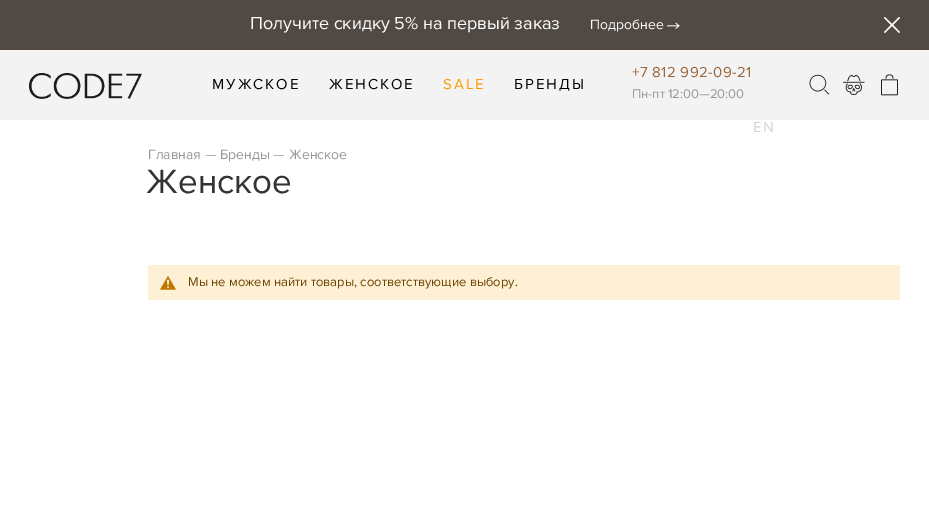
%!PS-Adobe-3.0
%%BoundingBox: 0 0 929 531
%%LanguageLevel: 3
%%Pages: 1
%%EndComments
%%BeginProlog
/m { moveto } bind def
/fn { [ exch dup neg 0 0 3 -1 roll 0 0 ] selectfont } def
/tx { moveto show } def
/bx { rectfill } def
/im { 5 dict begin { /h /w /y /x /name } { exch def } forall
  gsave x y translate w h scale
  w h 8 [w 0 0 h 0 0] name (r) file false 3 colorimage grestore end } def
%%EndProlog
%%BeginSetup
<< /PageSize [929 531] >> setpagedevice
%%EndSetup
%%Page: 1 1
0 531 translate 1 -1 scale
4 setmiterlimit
1 setgray
0 0 929 531 bx
0.318 0.29 0.267 setrgbcolor
0 0 929 50 bx
/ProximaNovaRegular-Regular 18 fn
0.996 setgray
(Получите скидку 5% на первый заказ) 250 29 tx
/ProximaNovaRegular-Regular 14 fn
(Подробнее) 590 29 tx
(image0.raw) 667 22 13 7 im
(image1.raw) 884 17 16 16 im
0.953 setgray
0 50 929 70 bx
(image2.raw) 29 73 113 26 im
/ProximaNovaRegular-Regular 15 fn
0 setgray
212 89 m 2 0 (МУЖСКОЕ) ashow
329 89 m 2 0 (ЖЕНСКОЕ) ashow
0.992 0.608 0 setrgbcolor
443 89 m 2 0 (SALE) ashow
0 setgray
514 89 m 2 0 (БРЕНДЫ) ashow
0.612 0.4 0.231 setrgbcolor
632 77 m 0.4 0 (+7 812 992-09-21) ashow
/ProximaNovaRegular-Regular 13 fn
0.592 setgray
(Пн-пт 12:00—20:00) 632 98 tx
(image3.raw) 809 74 21 21 im
(image4.raw) 843 74 22 21 im
(image5.raw) 881 74 17 22 im
/ProximaNovaRegular-Regular 15 fn
0.831 setgray
753 132 m 1 0 (EN) ashow
/ProximaNovaRegular-Regular 14 fn
0.592 setgray
(Главная —) 148 159 tx
(Бренды —) 220 159 tx
(Женское) 289 159 tx
/ProximaNovaRegular-Regular 35 fn
0.2 setgray
(Женское) 146 193 tx
0.992 0.941 0.835 setrgbcolor
148 265 752 35 bx
(image6.raw) 160 276 16 14 im
/ProximaNovaRegular-Regular 13 fn
0.435 0.267 0 setrgbcolor
(Мы не можем найти товары, соответствующие выбору.) 188 286 tx
showpage
%%EOF
